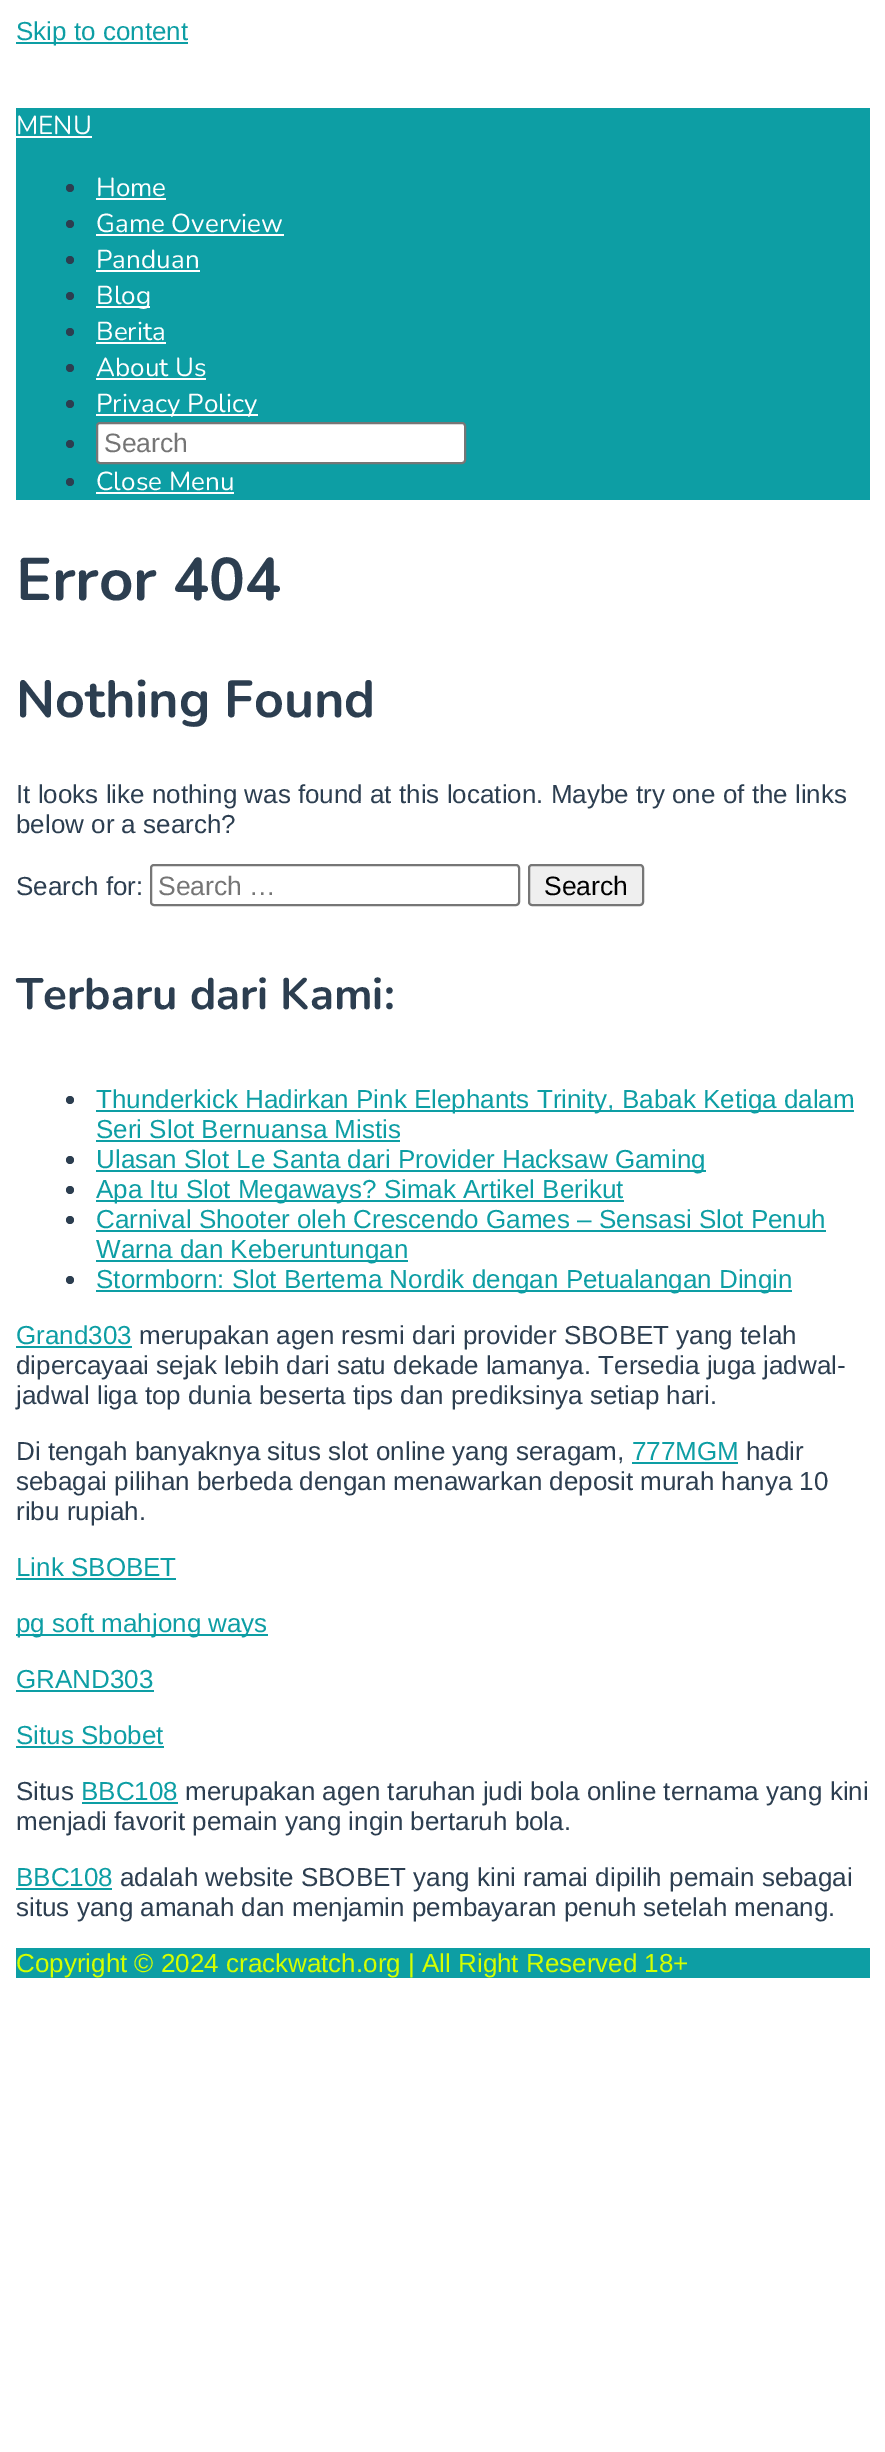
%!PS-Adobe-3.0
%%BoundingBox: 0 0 885 2452
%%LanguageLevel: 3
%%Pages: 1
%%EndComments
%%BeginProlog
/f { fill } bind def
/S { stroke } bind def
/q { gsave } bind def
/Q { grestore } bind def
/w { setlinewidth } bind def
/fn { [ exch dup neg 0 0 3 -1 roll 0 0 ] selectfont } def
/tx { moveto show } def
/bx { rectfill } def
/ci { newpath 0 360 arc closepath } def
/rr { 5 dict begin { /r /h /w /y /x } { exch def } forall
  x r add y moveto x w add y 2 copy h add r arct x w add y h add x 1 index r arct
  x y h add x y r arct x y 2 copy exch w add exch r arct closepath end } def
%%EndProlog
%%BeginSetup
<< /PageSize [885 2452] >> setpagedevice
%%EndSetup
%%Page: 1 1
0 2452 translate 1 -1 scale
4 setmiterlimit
1 setgray
0 0 885 2452 bx
0.051 0.62 0.643 setrgbcolor
16 42 172 2 bx
/LiberationSans-Regular 26 fn
(Skip to content) 16 40 tx
16 108 854 392 bx
/Nunito-Regular 26 fn
1 setgray
(MENU) 16 134 tx
16 136 76 2 bx
0.173 0.243 0.314 setrgbcolor
70 188 4 ci f
1 setgray
(Home) 96 196 tx
96 198 70 2 bx
0.173 0.243 0.314 setrgbcolor
70 224 4 ci f
1 setgray
(Game Overview) 96 232 tx
96 234 188 2 bx
0.173 0.243 0.314 setrgbcolor
70 260 4 ci f
1 setgray
(Panduan) 96 268 tx
96 270 104 2 bx
0.173 0.243 0.314 setrgbcolor
70 296 4 ci f
1 setgray
96 306 54 2 bx
(Blog) 96 304 tx
0.173 0.243 0.314 setrgbcolor
70 332 4 ci f
1 setgray
(Berita) 96 340 tx
96 342 70 2 bx
0.173 0.243 0.314 setrgbcolor
70 368 4 ci f
1 setgray
(About Us) 96 376 tx
96 378 110 2 bx
0.173 0.243 0.314 setrgbcolor
70 404 4 ci f
1 setgray
96 414 162 2 bx
(Privacy Policy) 96 412 tx
0.173 0.243 0.314 setrgbcolor
70 444 4 ci f
1 setgray
97 423 368 40 3 rr q f Q
0.463 setgray
2 w
S
/LiberationSans-Regular 26.5 fn
0.459 setgray
(Search) 104 452 tx
0.173 0.243 0.314 setrgbcolor
70 482 4 ci f
/Nunito-Regular 26 fn
1 setgray
(Close Menu) 96 490 tx
96 492 138 2 bx
/Nunito-Bold 60 fn
0.173 0.243 0.314 setrgbcolor
(Error 404) 16 600 tx
/Nunito-Bold 52 fn
(Nothing Found) 16 717 tx
/LiberationSans-Regular 26 fn
(It looks like nothing was found at this location. Maybe try one of the links) 16 803 tx
(below or a search?) 16 833 tx
(Search for:) 16 895 tx
0.463 setgray
151 865 368 40 3 rr S
/LiberationSans-Regular 26.5 fn
0.459 setgray
(Search …) 158 895 tx
0.937 setgray
529 865 114 40 3 rr q f Q
0.463 setgray
S
0 setgray
(Search) 544 895 tx
/Nunito-Bold 44 fn
0.173 0.243 0.314 setrgbcolor
(Terbaru dari Kami:) 16 1009 tx
70 1100 4 ci f
0.051 0.62 0.643 setrgbcolor
96 1110 758 2 bx
/LiberationSans-Regular 26 fn
(Thunderkick Hadirkan Pink Elephants Trinity, Babak Ketiga dalam) 96 1108 tx
(Seri Slot Bernuansa Mistis) 96 1138 tx
96 1140 304 2 bx
0.173 0.243 0.314 setrgbcolor
70 1160 4 ci f
0.051 0.62 0.643 setrgbcolor
96 1170 610 2 bx
(Ulasan Slot Le Santa dari Provider Hacksaw Gaming) 96 1168 tx
0.173 0.243 0.314 setrgbcolor
70 1190 4 ci f
0.051 0.62 0.643 setrgbcolor
96 1200 528 2 bx
(Apa Itu Slot Megaways? Simak Artikel Berikut) 96 1198 tx
0.173 0.243 0.314 setrgbcolor
70 1220 4 ci f
0.051 0.62 0.643 setrgbcolor
(Carnival Shooter oleh Crescendo Games – Sensasi Slot Penuh) 96 1228 tx
96 1230 730 2 bx
96 1260 312 2 bx
(Warna dan Keberuntungan) 96 1258 tx
0.173 0.243 0.314 setrgbcolor
70 1280 4 ci f
0.051 0.62 0.643 setrgbcolor
96 1290 696 2 bx
(Stormborn: Slot Bertema Nordik dengan Petualangan Dingin) 96 1288 tx
(Grand303) 16 1344 tx
16 1346 116 2 bx
0.173 0.243 0.314 setrgbcolor
(merupakan agen resmi dari provider SBOBET yang telah) 139 1344 tx
(dipercayaai sejak lebih dari satu dekade lamanya. Tersedia juga jadwal-) 16 1374 tx
(jadwal liga top dunia beserta tips dan prediksinya setiap hari.) 16 1404 tx
(Di tengah banyaknya situs slot online yang seragam,) 16 1460 tx
0.051 0.62 0.643 setrgbcolor
(777MGM) 632 1460 tx
632 1462 106 2 bx
0.173 0.243 0.314 setrgbcolor
(hadir) 746 1460 tx
(sebagai pilihan berbeda dengan menawarkan deposit murah hanya 10) 16 1490 tx
(ribu rupiah.) 16 1520 tx
0.051 0.62 0.643 setrgbcolor
(Link SBOBET) 16 1576 tx
16 1578 160 2 bx
16 1634 252 2 bx
(pg soft mahjong ways) 16 1632 tx
(GRAND303) 16 1688 tx
16 1690 138 2 bx
(Situs Sbobet) 16 1744 tx
16 1746 148 2 bx
0.173 0.243 0.314 setrgbcolor
(Situs) 16 1800 tx
0.051 0.62 0.643 setrgbcolor
(BBC108) 81 1800 tx
82 1802 96 2 bx
0.173 0.243 0.314 setrgbcolor
(merupakan agen taruhan judi bola online ternama yang kini) 185 1800 tx
(menjadi favorit pemain yang ingin bertaruh bola.) 16 1830 tx
0.051 0.62 0.643 setrgbcolor
(BBC108) 16 1886 tx
16 1888 96 2 bx
0.173 0.243 0.314 setrgbcolor
(adalah website SBOBET yang kini ramai dipilih pemain sebagai) 120 1886 tx
(situs yang amanah dan menjamin pembayaran penuh setelah menang.) 16 1916 tx
0.051 0.62 0.643 setrgbcolor
16 1948 854 30 bx
0.831 1 0 setrgbcolor
(Copyright © 2024 crackwatch.org | All Right Reserved 18+) 16 1972 tx
showpage
%%EOF
